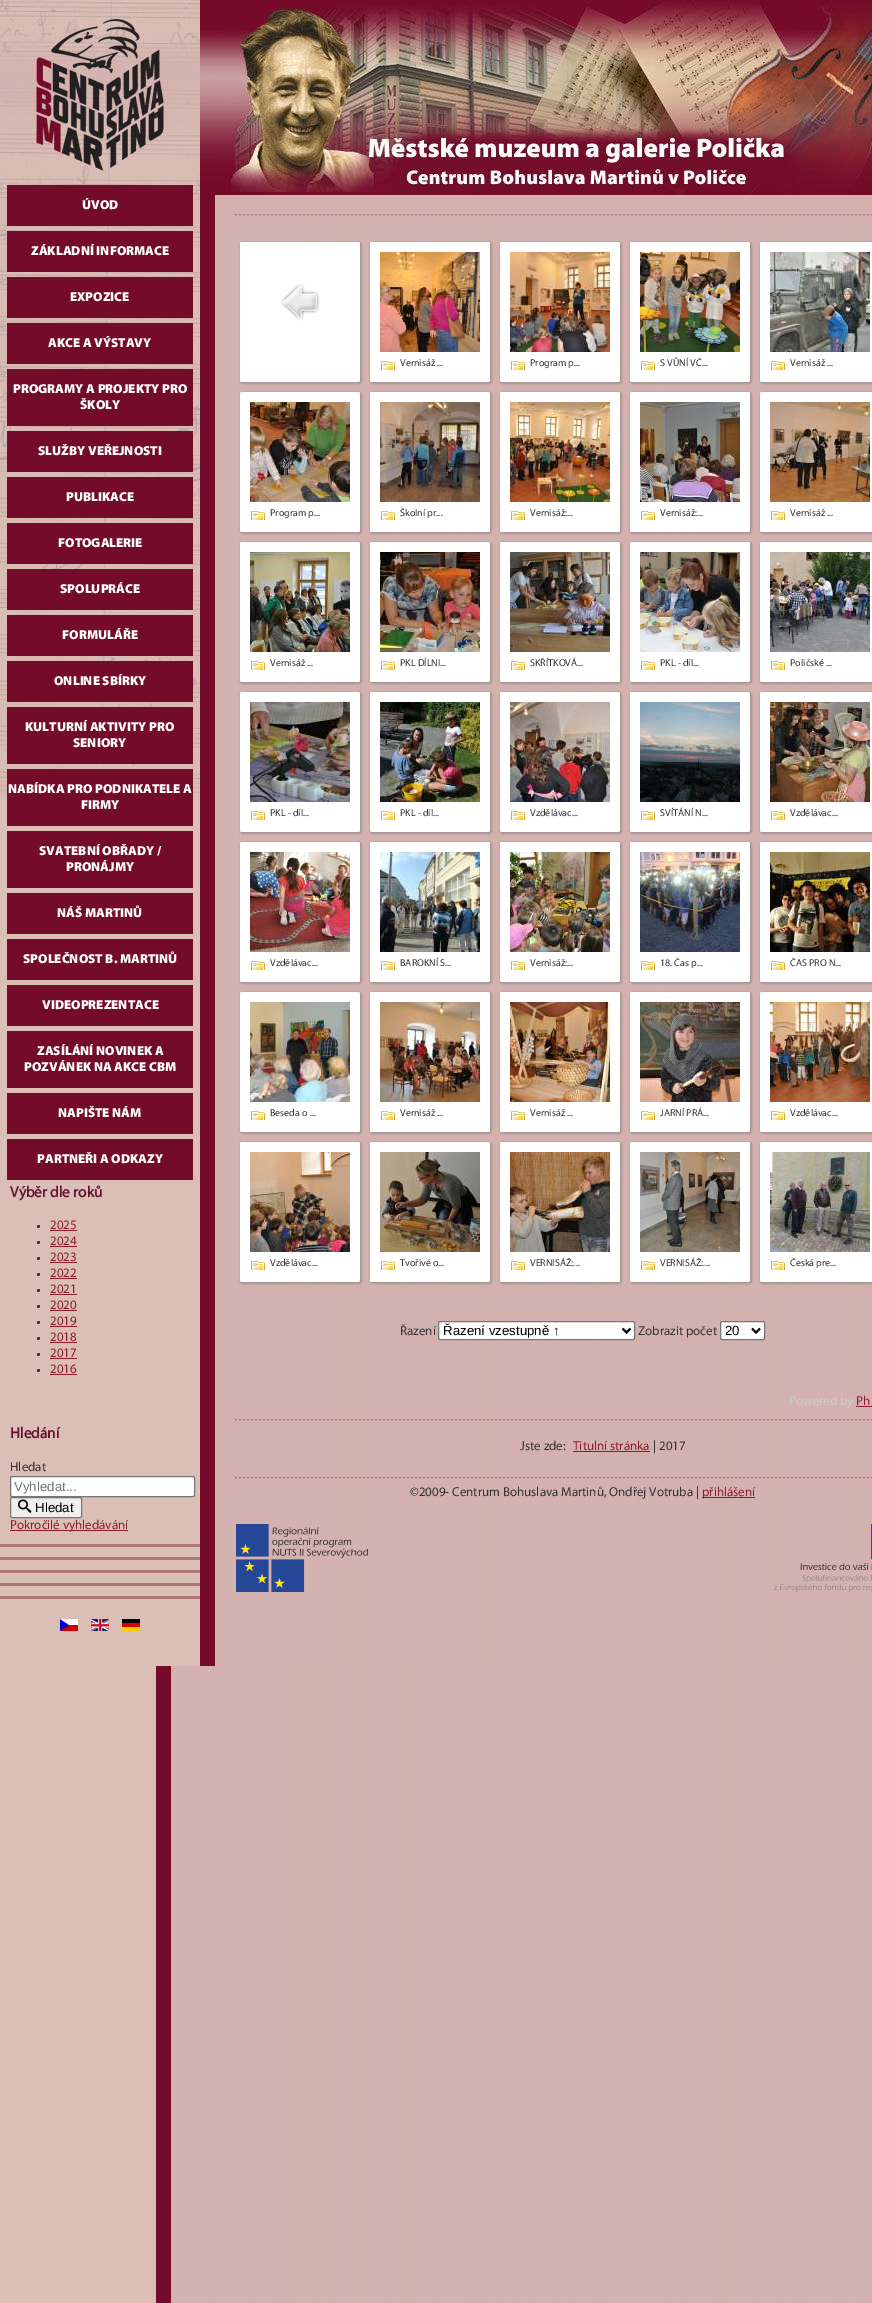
%!PS-Adobe-3.0
%%BoundingBox: 0 0 872 2303
%%LanguageLevel: 3
%%Pages: 1
%%EndComments
%%BeginProlog
/m { moveto } bind def
/l { lineto } bind def
/f { fill } bind def
/S { stroke } bind def
/q { gsave } bind def
/Q { grestore } bind def
/w { setlinewidth } bind def
/fn { [ exch dup neg 0 0 3 -1 roll 0 0 ] selectfont } def
/tx { moveto show } def
/bx { rectfill } def
/al { dup .setfillconstantalpha .setstrokeconstantalpha } def
/ci { newpath 0 360 arc closepath } def
/rr { 5 dict begin { /r /h /w /y /x } { exch def } forall
  x r add y moveto x w add y 2 copy h add r arct x w add y h add x 1 index r arct
  x y h add x y r arct x y 2 copy exch w add exch r arct closepath end } def
/sh { 12 dict begin { /a /b /q /h /w /y /x } { exch def } forall gsave /was 0 def
  9 -2 -9 { dup b mul 4 div /e exch def 1 sub .425 mul 2.718 exch exp 1 add a .99 .min exch div /now exch def
    1 1 now sub 1 was sub div sub al /was now def
    w h .min e 2 mul add 0 gt { x e sub y e sub w e 2 mul add h e 2 mul add
      q e add b .6 mul add w h .min 2 div e add .min 0 .max rr fill } if } for grestore end } def
/im { 5 dict begin { /h /w /y /x /name } { exch def } forall
  gsave x y translate w h scale
  w h 8 [w 0 0 h 0 0] name (r) file false 3 colorimage grestore end } def
%%EndProlog
%%BeginSetup
<< /PageSize [872 2303] /PageUsesTransparency true >> setpagedevice
%%EndSetup
%%Page: 1 1
0 .pushpdf14devicefilter
0 2303 translate 1 -1 scale
4 setmiterlimit
1 setgray
0 0 872 2303 bx
(image0.raw) 0 1666 872 637 im
(image1.raw) 0 195 872 1471 im
(image2.raw) 0 0 200 800 im
0.459 0.043 0.165 setrgbcolor
7 185 186 41 bx
/Myriad-Black 13 fn
1 setgray
(ÚVOD) 82 209 tx
0.459 0.043 0.165 setrgbcolor
7 231 186 41 bx
1 setgray
(ZÁKLADNÍ INFORMACE) 31 255 tx
0.459 0.043 0.165 setrgbcolor
7 277 186 41 bx
1 setgray
(EXPOZICE) 70 301 tx
0.459 0.043 0.165 setrgbcolor
7 323 186 41 bx
1 setgray
(AKCE A VÝSTAVY) 48 347 tx
0.459 0.043 0.165 setrgbcolor
7 369 186 57 bx
1 setgray
(PROGRAMY A PROJEKTY PRO) 13 393 tx
(ŠKOLY) 80 409 tx
0.459 0.043 0.165 setrgbcolor
7 431 186 41 bx
1 setgray
(SLUŽBY VEŘEJNOSTI) 38 455 tx
0.459 0.043 0.165 setrgbcolor
7 477 186 41 bx
1 setgray
(PUBLIKACE) 66 501 tx
0.459 0.043 0.165 setrgbcolor
7 523 186 41 bx
1 setgray
(FOTOGALERIE) 58 547 tx
0.459 0.043 0.165 setrgbcolor
7 569 186 41 bx
1 setgray
(SPOLUPRÁCE) 60 593 tx
0.459 0.043 0.165 setrgbcolor
7 615 186 41 bx
1 setgray
(FORMULÁŘE) 62 639 tx
0.459 0.043 0.165 setrgbcolor
7 661 186 41 bx
1 setgray
(ONLINE SBÍRKY) 54 685 tx
0.459 0.043 0.165 setrgbcolor
7 707 186 57 bx
1 setgray
(KULTURNÍ AKTIVITY PRO) 25 731 tx
(SENIORY) 73 747 tx
0.459 0.043 0.165 setrgbcolor
7 769 186 57 bx
1 setgray
(NABÍDKA PRO PODNIKATELE A) 8 793 tx
(FIRMY) 81 809 tx
0.459 0.043 0.165 setrgbcolor
7 831 186 57 bx
1 setgray
(SVATEBNÍ OBŘADY /) 39 855 tx
(PRONÁJMY) 66 871 tx
0.459 0.043 0.165 setrgbcolor
7 893 186 41 bx
1 setgray
(NÁŠ MARTINŮ) 57 917 tx
0.459 0.043 0.165 setrgbcolor
7 939 186 41 bx
1 setgray
(SPOLEČNOST B. MARTINŮ) 23 963 tx
0.459 0.043 0.165 setrgbcolor
7 985 186 41 bx
1 setgray
(VIDEOPREZENTACE) 42 1009 tx
0.459 0.043 0.165 setrgbcolor
7 1031 186 57 bx
1 setgray
(ZASÍLÁNÍ NOVINEK A) 37 1055 tx
(POZVÁNEK NA AKCE CBM) 24 1071 tx
0.459 0.043 0.165 setrgbcolor
7 1093 186 41 bx
1 setgray
(NAPIŠTE NÁM) 58 1117 tx
0.459 0.043 0.165 setrgbcolor
7 1139 186 41 bx
1 setgray
(PARTNEŘI A ODKAZY) 37 1163 tx
/Myriad-Bold 15.25 fn
0.392 0.075 0.176 setrgbcolor
(Výběr dle roků) 10 1197 tx
0.2 setgray
38.5 1226.5 1.5 ci f
/Myriad-Regular 13 fn
0.549 0.114 0.192 setrgbcolor
(2025) 50 1229 tx
50 1230 27 1 bx
0.2 setgray
38.5 1242.5 1.5 ci f
0.549 0.114 0.192 setrgbcolor
(2024) 50 1245 tx
50 1246 27 1 bx
0.2 setgray
38.5 1258.5 1.5 ci f
0.549 0.114 0.192 setrgbcolor
(2023) 50 1261 tx
50 1262 27 1 bx
0.2 setgray
38.5 1274.5 1.5 ci f
0.549 0.114 0.192 setrgbcolor
(2022) 50 1277 tx
50 1278 27 1 bx
0.2 setgray
38.5 1290.5 1.5 ci f
0.549 0.114 0.192 setrgbcolor
(2021) 50 1293 tx
50 1294 27 1 bx
0.2 setgray
38.5 1306.5 1.5 ci f
0.549 0.114 0.192 setrgbcolor
(2020) 50 1309 tx
50 1310 27 1 bx
0.2 setgray
38.5 1322.5 1.5 ci f
0.549 0.114 0.192 setrgbcolor
(2019) 50 1325 tx
50 1326 27 1 bx
0.2 setgray
38.5 1338.5 1.5 ci f
0.549 0.114 0.192 setrgbcolor
(2018) 50 1341 tx
50 1342 27 1 bx
0.2 setgray
38.5 1354.5 1.5 ci f
0.549 0.114 0.192 setrgbcolor
(2017) 50 1357 tx
50 1358 27 1 bx
0.2 setgray
38.5 1370.5 1.5 ci f
0.549 0.114 0.192 setrgbcolor
(2016) 50 1373 tx
50 1374 27 1 bx
/Myriad-Bold 15.25 fn
0.392 0.075 0.176 setrgbcolor
(Hledání) 10 1438 tx
/Myriad-Regular 13 fn
0.2 setgray
(Hledat) 10 1471 tx
1 setgray
10.5 1476.5 184 20 1.5 rr q f Q
0.463 setgray
S
/LiberationSans-Regular 13.25 fn
0.459 setgray
(Vyhledat...) 14 1491 tx
0.937 setgray
10.5 1497.5 71 20 1.5 rr q f Q
0.463 setgray
S
(image3.raw) 18 1499 14 14 im
0 setgray
(Hledat) 35 1512 tx
0.549 0.114 0.192 setrgbcolor
10 1530 118 1 bx
/Myriad-Regular 13 fn
(Pokročilé vyhledávání) 10 1529 tx
0.682 0.463 0.463 setrgbcolor
0 1544 200 3 bx
0 1557 200 3 bx
0 1570 200 3 bx
0 1583 200 3 bx
0 1596 200 3 bx
(image4.raw) 60 1619 18 12 im
(image5.raw) 91 1619 18 12 im
(image6.raw) 122 1619 18 12 im
(image7.raw) 200 0 672 195 im
(image8.raw) 235 214 637 2 im
0.471 setgray
240 242 122 142 3 1 0.5 sh
1 setgray
240 242 120 140 2 rr f
(image9.raw) 281 283 39 38 im
0.471 setgray
370 242 122 142 3 1 0.5 sh
1 setgray
370 242 120 140 2 rr f
(image10.raw) 380 252 100 100 im
(image11.raw) 381 361 14 9 im
/Myriad-Regular 10 fn
0.2 setgray
(Vernisáž ...) 400 366 tx
0.471 setgray
500 242 122 142 3 1 0.5 sh
1 setgray
500 242 120 140 2 rr f
(image12.raw) 510 252 100 100 im
(image11.raw) 511 361 14 9 im
0.2 setgray
(Program p...) 530 366 tx
0.471 setgray
630 242 122 142 3 1 0.5 sh
1 setgray
630 242 120 140 2 rr f
(image13.raw) 640 252 100 100 im
(image11.raw) 641 361 14 9 im
0.2 setgray
(S VŮNÍ VČ...) 660 366 tx
0.471 setgray
760 242 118 142 3 1 0.5 sh
1 setgray
760 242 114 140 2 rr f
(image14.raw) 770 252 100 100 im
(image11.raw) 771 361 14 9 im
0.2 setgray
(Vernisáž ...) 790 366 tx
0.471 setgray
240 392 122 142 3 1 0.5 sh
1 setgray
240 392 120 140 2 rr f
(image15.raw) 250 402 100 100 im
(image11.raw) 251 511 14 9 im
0.2 setgray
(Program p...) 270 516 tx
0.471 setgray
370 392 122 142 3 1 0.5 sh
1 setgray
370 392 120 140 2 rr f
(image16.raw) 380 402 100 100 im
(image11.raw) 381 511 14 9 im
0.2 setgray
(Školní pr...) 400 516 tx
0.471 setgray
500 392 122 142 3 1 0.5 sh
1 setgray
500 392 120 140 2 rr f
(image17.raw) 510 402 100 100 im
(image11.raw) 511 511 14 9 im
0.2 setgray
(Vernisáž:...) 530 516 tx
0.471 setgray
630 392 122 142 3 1 0.5 sh
1 setgray
630 392 120 140 2 rr f
(image18.raw) 640 402 100 100 im
(image11.raw) 641 511 14 9 im
0.2 setgray
(Vernisáž:...) 660 516 tx
0.471 setgray
760 392 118 142 3 1 0.5 sh
1 setgray
760 392 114 140 2 rr f
(image19.raw) 770 402 100 100 im
(image11.raw) 771 511 14 9 im
0.2 setgray
(Vernisáž ...) 790 516 tx
0.471 setgray
240 542 122 142 3 1 0.5 sh
1 setgray
240 542 120 140 2 rr f
(image20.raw) 250 552 100 100 im
(image11.raw) 251 661 14 9 im
0.2 setgray
(Vernisáž ...) 270 666 tx
0.471 setgray
370 542 122 142 3 1 0.5 sh
1 setgray
370 542 120 140 2 rr f
(image21.raw) 380 552 100 100 im
(image11.raw) 381 661 14 9 im
0.2 setgray
(PKL DÍLNI...) 400 666 tx
0.471 setgray
500 542 122 142 3 1 0.5 sh
1 setgray
500 542 120 140 2 rr f
(image22.raw) 510 552 100 100 im
(image11.raw) 511 661 14 9 im
0.2 setgray
(SKŘÍTKOVÁ...) 530 666 tx
0.471 setgray
630 542 122 142 3 1 0.5 sh
1 setgray
630 542 120 140 2 rr f
(image23.raw) 640 552 100 100 im
(image11.raw) 641 661 14 9 im
0.2 setgray
(PKL - díl...) 660 666 tx
0.471 setgray
760 542 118 142 3 1 0.5 sh
1 setgray
760 542 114 140 2 rr f
(image24.raw) 770 552 100 100 im
(image11.raw) 771 661 14 9 im
0.2 setgray
(Poličské ...) 790 666 tx
0.471 setgray
240 692 122 142 3 1 0.5 sh
1 setgray
240 692 120 140 2 rr f
(image25.raw) 250 702 100 100 im
(image11.raw) 251 811 14 9 im
0.2 setgray
(PKL - díl...) 270 816 tx
0.471 setgray
370 692 122 142 3 1 0.5 sh
1 setgray
370 692 120 140 2 rr f
(image26.raw) 380 702 100 100 im
(image11.raw) 381 811 14 9 im
0.2 setgray
(PKL - díl...) 400 816 tx
0.471 setgray
500 692 122 142 3 1 0.5 sh
1 setgray
500 692 120 140 2 rr f
(image27.raw) 510 702 100 100 im
(image11.raw) 511 811 14 9 im
0.2 setgray
(Vzdělávac...) 530 816 tx
0.471 setgray
630 692 122 142 3 1 0.5 sh
1 setgray
630 692 120 140 2 rr f
(image28.raw) 640 702 100 100 im
(image11.raw) 641 811 14 9 im
0.2 setgray
(SVÍTÁNÍ N...) 660 816 tx
0.471 setgray
760 692 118 142 3 1 0.5 sh
1 setgray
760 692 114 140 2 rr f
(image29.raw) 770 702 100 100 im
(image11.raw) 771 811 14 9 im
0.2 setgray
(Vzdělávac...) 790 816 tx
0.471 setgray
240 842 122 142 3 1 0.5 sh
1 setgray
240 842 120 140 2 rr f
(image30.raw) 250 852 100 100 im
(image11.raw) 251 961 14 9 im
0.2 setgray
(Vzdělávac...) 270 966 tx
0.471 setgray
370 842 122 142 3 1 0.5 sh
1 setgray
370 842 120 140 2 rr f
(image31.raw) 380 852 100 100 im
(image11.raw) 381 961 14 9 im
0.2 setgray
(BAROKNÍ S...) 400 966 tx
0.471 setgray
500 842 122 142 3 1 0.5 sh
1 setgray
500 842 120 140 2 rr f
(image32.raw) 510 852 100 100 im
(image11.raw) 511 961 14 9 im
0.2 setgray
(Vernisáž:...) 530 966 tx
0.471 setgray
630 842 122 142 3 1 0.5 sh
1 setgray
630 842 120 140 2 rr f
(image33.raw) 640 852 100 100 im
(image11.raw) 641 961 14 9 im
0.2 setgray
(18. Čas p...) 660 966 tx
0.471 setgray
760 842 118 142 3 1 0.5 sh
1 setgray
760 842 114 140 2 rr f
(image34.raw) 770 852 100 100 im
(image11.raw) 771 961 14 9 im
0.2 setgray
(ČAS PRO N...) 790 966 tx
0.471 setgray
240 992 122 142 3 1 0.5 sh
1 setgray
240 992 120 140 2 rr f
(image35.raw) 250 1002 100 100 im
(image11.raw) 251 1111 14 9 im
0.2 setgray
(Beseda o ...) 270 1116 tx
0.471 setgray
370 992 122 142 3 1 0.5 sh
1 setgray
370 992 120 140 2 rr f
(image36.raw) 380 1002 100 100 im
(image11.raw) 381 1111 14 9 im
0.2 setgray
(Vernisáž ...) 400 1116 tx
0.471 setgray
500 992 122 142 3 1 0.5 sh
1 setgray
500 992 120 140 2 rr f
(image37.raw) 510 1002 100 100 im
(image11.raw) 511 1111 14 9 im
0.2 setgray
(Vernisáž ...) 530 1116 tx
0.471 setgray
630 992 122 142 3 1 0.5 sh
1 setgray
630 992 120 140 2 rr f
(image38.raw) 640 1002 100 100 im
(image11.raw) 641 1111 14 9 im
0.2 setgray
(JARNÍ PRÁ...) 660 1116 tx
0.471 setgray
760 992 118 142 3 1 0.5 sh
1 setgray
760 992 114 140 2 rr f
(image39.raw) 770 1002 100 100 im
(image11.raw) 771 1111 14 9 im
0.2 setgray
(Vzdělávac...) 790 1116 tx
0.471 setgray
240 1142 122 142 3 1 0.5 sh
1 setgray
240 1142 120 140 2 rr f
(image40.raw) 250 1152 100 100 im
(image11.raw) 251 1261 14 9 im
0.2 setgray
(Vzdělávac...) 270 1266 tx
0.471 setgray
370 1142 122 142 3 1 0.5 sh
1 setgray
370 1142 120 140 2 rr f
(image41.raw) 380 1152 100 100 im
(image11.raw) 381 1261 14 9 im
0.2 setgray
(Tvořivé o...) 400 1266 tx
0.471 setgray
500 1142 122 142 3 1 0.5 sh
1 setgray
500 1142 120 140 2 rr f
(image42.raw) 510 1152 100 100 im
(image11.raw) 511 1261 14 9 im
0.2 setgray
(VERNISÁŽ:...) 530 1266 tx
0.471 setgray
630 1142 122 142 3 1 0.5 sh
1 setgray
630 1142 120 140 2 rr f
(image43.raw) 640 1152 100 100 im
(image11.raw) 641 1261 14 9 im
0.2 setgray
(VERNISÁŽ:...) 660 1266 tx
0.471 setgray
760 1142 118 142 3 1 0.5 sh
1 setgray
760 1142 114 140 2 rr f
(image44.raw) 770 1152 100 100 im
(image11.raw) 771 1261 14 9 im
0.2 setgray
(Česká pre...) 790 1266 tx
/Myriad-Regular 13 fn
(Řazení) 400 1335 tx
1 setgray
438.5 1321.5 196 18 1.5 rr q f Q
0.463 setgray
S
0 setgray
2 w
622.5 1328.5 m 626.5 1332.5 l 630.5 1328.5 l S
/LiberationSans-Regular 13.25 fn
(Řazení vzestupně ↑) 443 1335 tx
/Myriad-Regular 13 fn
0.2 setgray
(Zobrazit počet) 638 1335 tx
1 setgray
720.5 1321.5 44 18 1.5 rr q f Q
0.463 setgray
1 w
S
0 setgray
2 w
752 1328.5 m 756 1332.5 l 760 1328.5 l S
/LiberationSans-Regular 13.25 fn
(20) 725 1335 tx
/Myriad-Regular 13 fn
0.8 setgray
(Powered by) 789 1405 tx
0.549 0.114 0.192 setrgbcolor
(Ph) 856 1405 tx
856 1406 16 1 bx
(image8.raw) 235 1419 637 2 im
0.2 setgray
(Jste zde:) 520 1450 tx
0.549 0.114 0.192 setrgbcolor
(Titulní stránka) 573 1450 tx
573 1451 77 1 bx
0.2 setgray
(| 2017) 653 1450 tx
(image8.raw) 235 1477 637 2 im
(©2009- Centrum Bohuslava Martinů, Ondřej Votruba |) 410 1496 tx
0.549 0.114 0.192 setrgbcolor
702 1497 53 1 bx
(přihlášení) 702 1496 tx
(image45.raw) 236 1524 132 68 im
(image46.raw) 774 1524 98 68 im
.poppdf14devicefilter showpage
%%EOF
